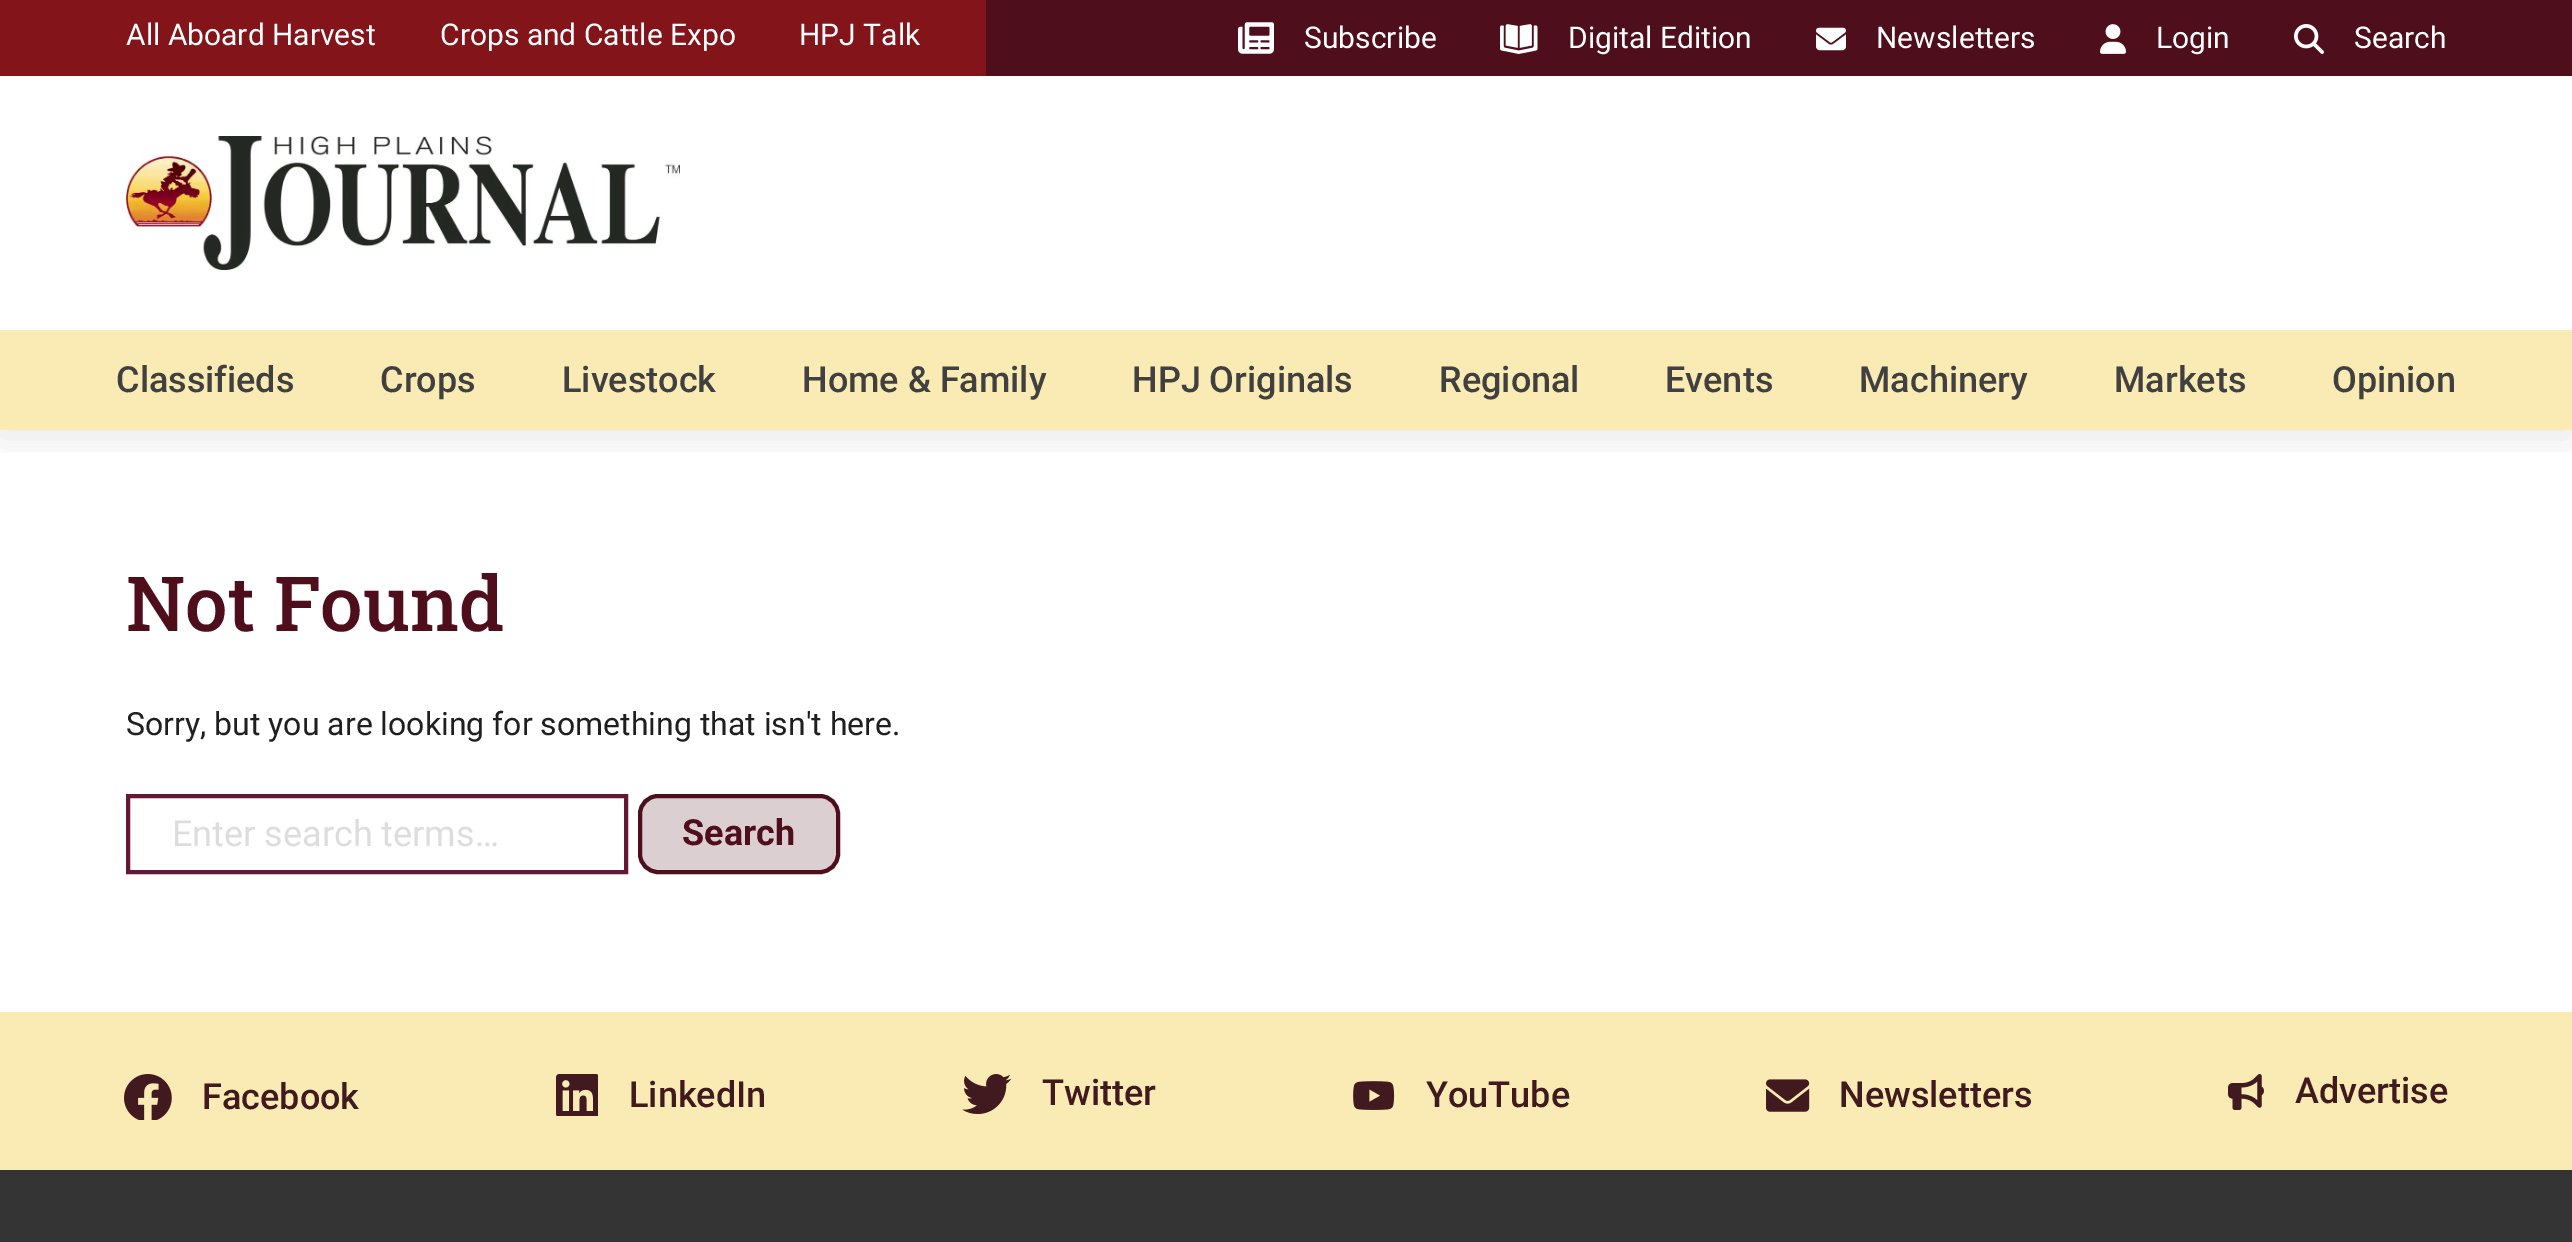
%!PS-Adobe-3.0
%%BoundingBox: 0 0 2572 1242
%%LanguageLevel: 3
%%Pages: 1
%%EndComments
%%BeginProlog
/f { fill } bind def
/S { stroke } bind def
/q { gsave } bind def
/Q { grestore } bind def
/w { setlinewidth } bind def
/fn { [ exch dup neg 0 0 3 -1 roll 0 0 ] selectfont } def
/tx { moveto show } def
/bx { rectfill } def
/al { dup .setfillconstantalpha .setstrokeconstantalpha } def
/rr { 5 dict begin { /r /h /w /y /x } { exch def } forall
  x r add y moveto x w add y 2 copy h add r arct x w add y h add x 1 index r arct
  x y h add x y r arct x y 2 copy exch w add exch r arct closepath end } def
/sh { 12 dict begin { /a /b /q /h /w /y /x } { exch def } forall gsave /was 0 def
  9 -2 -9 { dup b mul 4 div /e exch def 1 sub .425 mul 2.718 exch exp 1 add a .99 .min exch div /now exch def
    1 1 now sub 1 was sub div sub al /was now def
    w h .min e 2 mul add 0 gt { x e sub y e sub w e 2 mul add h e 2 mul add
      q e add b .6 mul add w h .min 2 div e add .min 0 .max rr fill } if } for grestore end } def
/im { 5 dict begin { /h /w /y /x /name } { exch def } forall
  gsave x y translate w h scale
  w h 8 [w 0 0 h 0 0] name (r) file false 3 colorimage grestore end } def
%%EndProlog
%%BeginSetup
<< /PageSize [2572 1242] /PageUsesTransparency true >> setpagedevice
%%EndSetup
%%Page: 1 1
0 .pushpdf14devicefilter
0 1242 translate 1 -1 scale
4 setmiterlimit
1 setgray
0 0 2572 1242 bx
q
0 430 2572 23 rectclip
0 setgray
0 6 2572 430 0 20 0.1 sh
Q
0.306 0.055 0.11 setrgbcolor
986 0 1586 76 bx
0.514 0.078 0.102 setrgbcolor
0 0 986 76 bx
/Roboto-Regular 30 fn
1 setgray
(All Aboard Harvest) 126 45 tx
(Crops and Cattle Expo) 440 45 tx
(HPJ Talk) 799 45 tx
(image0.raw) 1238 22 36 32 im
(Subscribe) 1304 48 tx
(image1.raw) 1500 24 38 30 im
(Digital Edition) 1568 48 tx
(image2.raw) 1816 27 30 24 im
(Newsletters) 1876 48 tx
(image3.raw) 2100 24 26 30 im
(Login) 2156 48 tx
(image4.raw) 2294 24 30 30 im
(Search) 2354 48 tx
(image5.raw) 126 136 554 134 im
0.98 0.922 0.706 setrgbcolor
0 330 2572 100 bx
/Roboto-Medium 36 fn
0.251 setgray
(Classifieds) 116 392 tx
(Crops) 380 392 tx
(Livestock) 562 392 tx
(Home & Family) 802 392 tx
(HPJ Originals) 1132 392 tx
(Regional) 1439 392 tx
(Events) 1665 392 tx
(Machinery) 1859 392 tx
(Markets) 2114 392 tx
(Opinion) 2332 392 tx
/RobotoSlab-Medium 76 fn
0.306 0.055 0.11 setrgbcolor
(Not Found) 126 631 tx
/Roboto-Regular 32 fn
0.122 setgray
(Sorry, but you are looking for something that isn't here.) 126 735 tx
0.404 0.09 0.212 setrgbcolor
4 w
128 796 498 76 rectstroke
/Roboto-Regular 36 fn
0.867 setgray
(Enter search terms…) 172 846 tx
0.863 0.812 0.824 setrgbcolor
640 796 198 76 18 rr q f Q
0.306 0.055 0.11 setrgbcolor
S
/Roboto-Bold 36 fn
(Search) 682 845 tx
0.2 0.204 0.2 setrgbcolor
0 1170 2572 72 bx
0.98 0.922 0.706 setrgbcolor
0 1012 2572 158 bx
(image6.raw) 124 1074 48 46 im
/Roboto-Medium 36 fn
0.251 0.102 0.118 setrgbcolor
(Facebook) 202 1109 tx
(image7.raw) 556 1074 42 42 im
(LinkedIn) 629 1107 tx
(image8.raw) 962 1074 50 40 im
(Twitter) 1042 1105 tx
(image9.raw) 1353 1081 42 29 im
(YouTube) 1426 1107 tx
(image10.raw) 1766 1079 44 33 im
(Newsletters) 1839 1107 tx
(image11.raw) 2228 1074 36 36 im
(Advertise) 2295 1103 tx
.poppdf14devicefilter showpage
%%EOF
